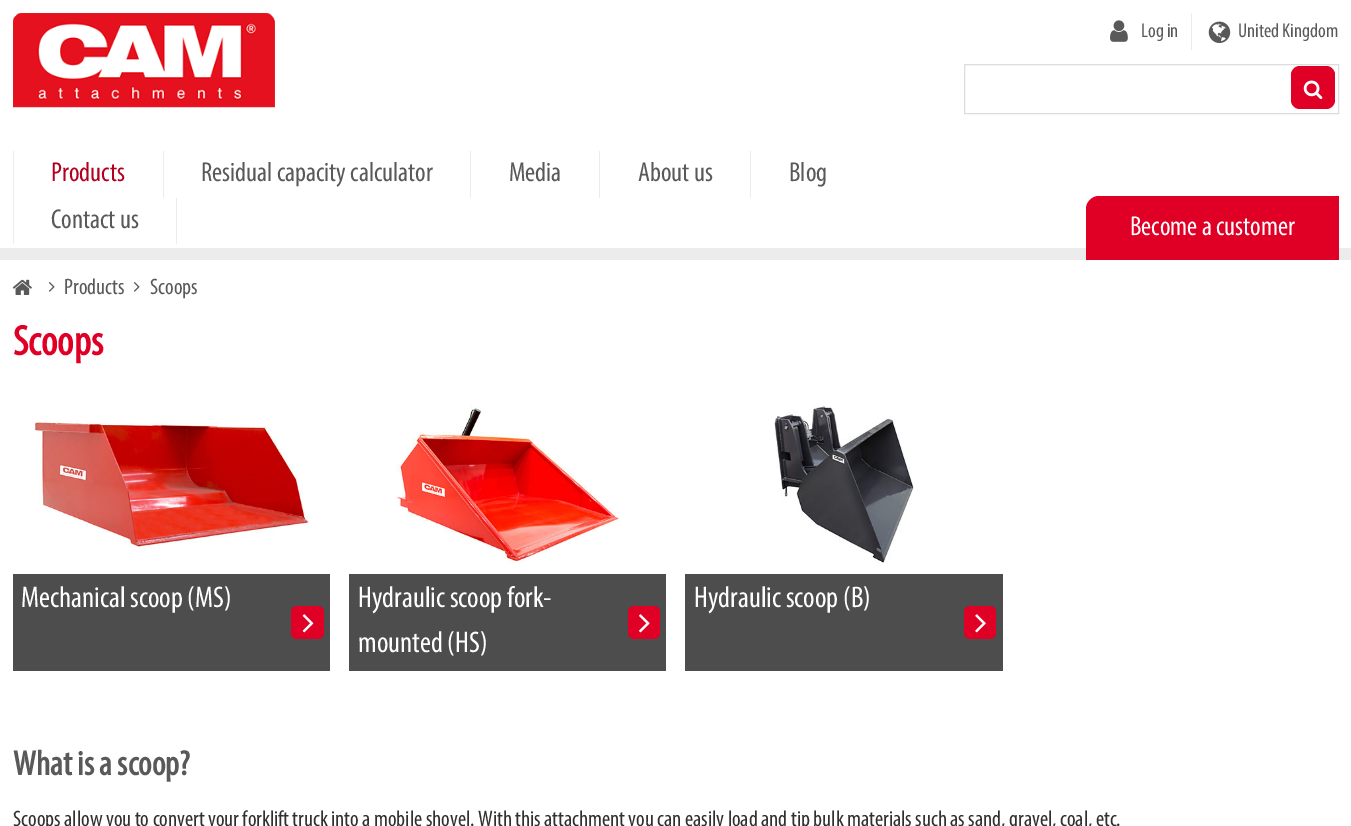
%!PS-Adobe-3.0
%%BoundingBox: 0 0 1351 826
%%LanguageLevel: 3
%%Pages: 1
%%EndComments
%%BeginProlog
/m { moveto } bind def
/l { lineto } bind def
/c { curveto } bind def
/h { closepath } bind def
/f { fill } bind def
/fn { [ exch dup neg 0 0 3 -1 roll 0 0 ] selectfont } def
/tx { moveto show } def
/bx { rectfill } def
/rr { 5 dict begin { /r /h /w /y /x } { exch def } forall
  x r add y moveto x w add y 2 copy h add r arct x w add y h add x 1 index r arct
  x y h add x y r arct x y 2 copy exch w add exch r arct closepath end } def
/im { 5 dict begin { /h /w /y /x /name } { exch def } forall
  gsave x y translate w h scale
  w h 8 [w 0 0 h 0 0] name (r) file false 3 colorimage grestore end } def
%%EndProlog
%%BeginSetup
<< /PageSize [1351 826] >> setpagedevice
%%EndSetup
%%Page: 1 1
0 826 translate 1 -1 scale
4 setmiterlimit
1 setgray
0 0 1351 826 bx
(image0.raw) 13 13 262 95 im
0.929 0.925 0.929 setrgbcolor
1191 13 1 37 bx
(image1.raw) 1110 20 18 22 im
/Myriad-Regular 20 fn
0.349 setgray
(Log in) 1141 37 tx
(image2.raw) 1208 21 23 22 im
(United Kingdom) 1238 37 tx
0.867 setgray
964.5 64.5 374 49 rectstroke
0.878 0 0.149 setrgbcolor
1291 66 44 43 9 rr f
(image3.raw) 1303 80 20 20 im
/Myriad-Regular 27.5 fn
0.702 0 0.118 setrgbcolor
(Products) 51 181 tx
0.929 0.925 0.929 setrgbcolor
163 151 1 47 bx
0.349 setgray
(Residual capacity calculator) 201 181 tx
0.929 0.925 0.929 setrgbcolor
470 151 1 47 bx
0.349 setgray
(Media) 509 181 tx
0.929 0.925 0.929 setrgbcolor
599 151 1 47 bx
0.349 setgray
(About us) 638 181 tx
0.929 0.925 0.929 setrgbcolor
750 151 1 47 bx
0.349 setgray
(Blog) 789 181 tx
0.929 0.925 0.929 setrgbcolor
176 198 1 46 bx
13 151 1 93 bx
0.349 setgray
(Contact us) 51 228 tx
0.929 0.925 0.929 setrgbcolor
0 248 1351 12 bx
0.878 0 0.149 setrgbcolor
1099 196 m 1339 196 l 1339 260 l 1086 260 l 1086 209 l 1086 202 1092 196 1099 196 c h f
1 setgray
(Become a customer) 1130 235 tx
(image4.raw) 12 279 20 16 im
(image5.raw) 48 282 7 10 im
/Myriad-Regular 22.5 fn
0.349 setgray
(Products) 64 294 tx
(image5.raw) 133 282 7 10 im
(Scoops) 150 294 tx
/Myriad-Bold 42.5 fn
0.878 0 0.149 setrgbcolor
(Scoops) 13 355 tx
(image6.raw) 34 421 275 128 im
0.302 setgray
13 574 317 97 bx
/Myriad-Regular 30 fn
1 setgray
(Mechanical scoop \(MS\)) 21 607 tx
0.878 0 0.149 setrgbcolor
291 606 33 33 6 rr f
(image7.raw) 302 614 12 19 im
(image8.raw) 396 406 223 159 im
0.302 setgray
349 574 317 97 bx
1 setgray
(Hydraulic scoop fork-) 358 607 tx
(mounted \(HS\)) 358 652 tx
0.878 0 0.149 setrgbcolor
628 606 32 33 6 rr f
(image9.raw) 639 614 11 19 im
(image10.raw) 774 406 140 158 im
0.302 setgray
685 574 318 97 bx
1 setgray
(Hydraulic scoop \(B\)) 694 607 tx
0.878 0 0.149 setrgbcolor
964 606 32 33 6 rr f
(image11.raw) 975 614 11 19 im
/Myriad-Bold 35 fn
0.349 setgray
(What is a scoop?) 13 775 tx
/Myriad-Regular 22.5 fn
0.188 setgray
(Scoops allow you to convert your forklift truck into a mobile shovel. With this attachment you can easily load and tip bulk materials such as sand, gravel, coal, etc.) 13 826 tx
showpage
%%EOF
